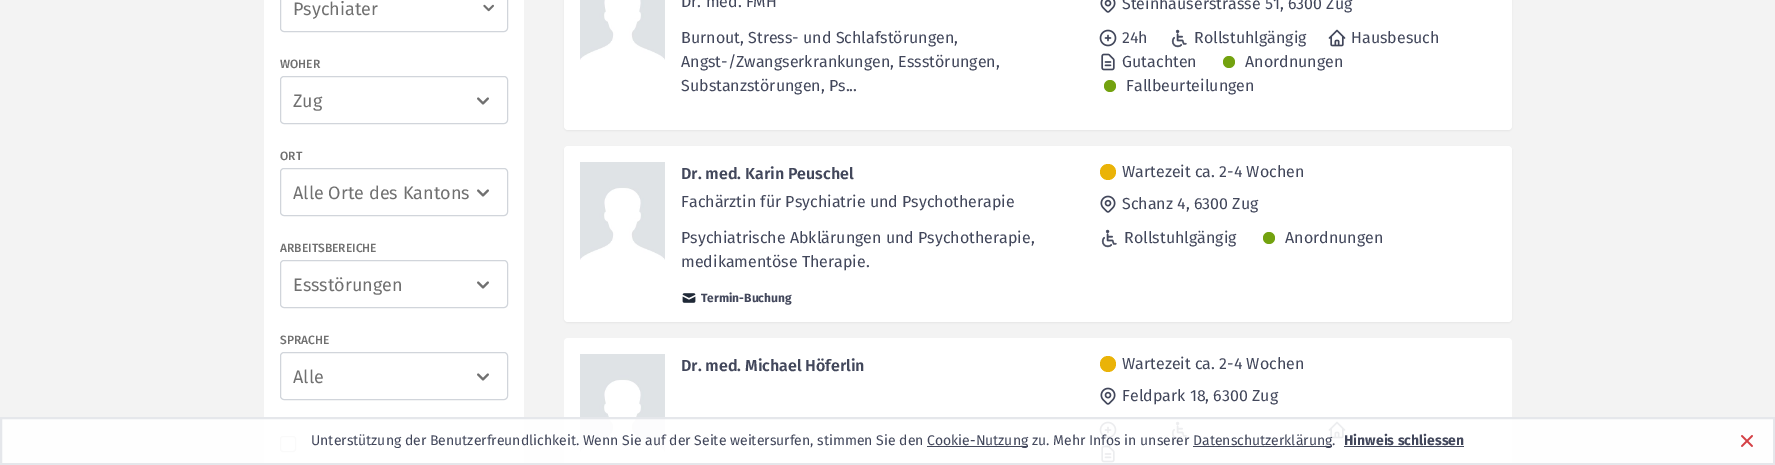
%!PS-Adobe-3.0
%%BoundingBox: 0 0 1775 465
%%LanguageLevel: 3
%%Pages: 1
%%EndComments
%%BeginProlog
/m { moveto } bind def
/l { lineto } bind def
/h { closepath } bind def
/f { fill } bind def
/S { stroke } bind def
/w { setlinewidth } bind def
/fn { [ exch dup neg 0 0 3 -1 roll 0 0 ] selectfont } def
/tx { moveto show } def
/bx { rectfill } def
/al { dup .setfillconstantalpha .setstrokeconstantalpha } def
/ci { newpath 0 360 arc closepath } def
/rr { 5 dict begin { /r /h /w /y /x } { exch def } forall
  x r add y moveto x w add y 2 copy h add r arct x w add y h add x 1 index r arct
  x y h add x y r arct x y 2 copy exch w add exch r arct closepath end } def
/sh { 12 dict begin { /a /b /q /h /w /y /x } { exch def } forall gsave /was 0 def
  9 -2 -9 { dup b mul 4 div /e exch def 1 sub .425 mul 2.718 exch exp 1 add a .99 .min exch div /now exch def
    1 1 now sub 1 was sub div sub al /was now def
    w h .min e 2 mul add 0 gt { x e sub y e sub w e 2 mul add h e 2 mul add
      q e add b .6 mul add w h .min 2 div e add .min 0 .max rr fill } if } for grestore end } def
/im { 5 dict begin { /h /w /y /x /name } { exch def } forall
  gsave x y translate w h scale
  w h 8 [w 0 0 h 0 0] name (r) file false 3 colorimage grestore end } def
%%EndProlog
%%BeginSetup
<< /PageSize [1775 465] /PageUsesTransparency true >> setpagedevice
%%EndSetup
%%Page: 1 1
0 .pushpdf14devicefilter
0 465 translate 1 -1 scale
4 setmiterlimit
0.953 setgray
0 0 1775 465 bx
1 setgray
264 0 260 463 bx
0.82 0.835 0.859 setrgbcolor
280.5 -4.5 227 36 3.5 rr S
/FiraSans-Regular 18 fn
0.439 setgray
(Psychiater) 293 15 tx
(image0.raw) 483 4 11 8 im
/FiraSans-Medium 12 fn
(WOHER) 280 68 tx
0.82 0.835 0.859 setrgbcolor
280.5 76.5 227 47 3.5 rr S
/FiraSans-Regular 18 fn
0.439 setgray
(Zug) 293 107 tx
(image1.raw) 477 97 12 8 im
/FiraSans-Medium 12 fn
(ORT) 280 160 tx
0.82 0.835 0.859 setrgbcolor
280.5 168.5 227 47 3.5 rr S
/FiraSans-Regular 18 fn
0.439 setgray
(Alle Orte des Kantons) 293 199 tx
(image1.raw) 477 189 12 8 im
/FiraSans-Medium 12 fn
(ARBEITSBEREICHE) 280 252 tx
0.82 0.835 0.859 setrgbcolor
280.5 260.5 227 47 3.5 rr S
/FiraSans-Regular 18 fn
0.439 setgray
(Essstörungen) 293 291 tx
(image1.raw) 477 281 12 8 im
/FiraSans-Medium 12 fn
(SPRACHE) 280 344 tx
0.82 0.835 0.859 setrgbcolor
280.5 352.5 227 47 3.5 rr S
/FiraSans-Regular 18 fn
0.439 setgray
(Alle) 293 383 tx
(image1.raw) 477 373 12 8 im
0.792 0.808 0.808 setrgbcolor
280.5 436.5 15 15 2.5 rr S
0 setgray
564 -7 948 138 4 1 0.05 sh
1 setgray
564 -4 948 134 4 rr f
(image2.raw) 580 0 85 60 im
/FiraSans-Regular 16 fn
0.259 0.278 0.357 setrgbcolor
(Dr. med. FMH) 681 7 tx
(Burnout, Stress- und Schlafstörungen,) 681 43 tx
(Angst-/Zwangserkrankungen, Essstörungen,) 681 67 tx
(Substanzstörungen, Ps...) 681 91 tx
(image3.raw) 1100 0 16 13 im
(Steinhauserstrasse 51, 6300 Zug) 1122 9 tx
(image4.raw) 1099 29 18 18 im
(24h) 1122 43 tx
(image5.raw) 1171 29 16 19 im
(Rollstuhlgängig) 1194 43 tx
(image6.raw) 1328 29 18 18 im
(Hausbesuch) 1351 43 tx
(image7.raw) 1101 53 14 18 im
(Gutachten) 1122 67 tx
0.451 0.635 0.059 setrgbcolor
1229 62 6 ci f
0.259 0.278 0.357 setrgbcolor
(Anordnungen) 1245 67 tx
0.451 0.635 0.059 setrgbcolor
1110 86 6 ci f
0.259 0.278 0.357 setrgbcolor
(Fallbeurteilungen) 1126 91 tx
0 setgray
564 147 948 176 4 1 0.05 sh
1 setgray
564 146 948 176 4 rr f
(image8.raw) 580 162 85 98 im
/FiraSans-SemiBold 16 fn
0.259 0.278 0.357 setrgbcolor
(Dr. med. Karin Peuschel) 681 179 tx
/FiraSans-Regular 16 fn
(Fachärztin für Psychiatrie und Psychotherapie) 681 207 tx
(Psychiatrische Abklärungen und Psychotherapie,) 681 243 tx
(medikamentöse Therapie.) 681 267 tx
(image9.raw) 682 293 14 10 im
/FiraSans-Bold 12 fn
(Termin-Buchung) 701 302 tx
0.918 0.702 0.031 setrgbcolor
1108 172 8 ci f
/FiraSans-Regular 16 fn
0.259 0.278 0.357 setrgbcolor
(Wartezeit ca. 2-4 Wochen) 1122 177 tx
(image10.raw) 1100 195 16 18 im
(Schanz 4, 6300 Zug) 1122 209 tx
(image5.raw) 1101 229 16 19 im
(Rollstuhlgängig) 1124 243 tx
0.451 0.635 0.059 setrgbcolor
1269 238 6 ci f
0.259 0.278 0.357 setrgbcolor
(Anordnungen) 1285 243 tx
1 setgray
564 338 948 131 4 rr f
(image11.raw) 580 354 85 98 im
/FiraSans-SemiBold 16 fn
0.259 0.278 0.357 setrgbcolor
(Dr. med. Michael Höferlin) 681 371 tx
0.918 0.702 0.031 setrgbcolor
1108 364 8 ci f
/FiraSans-Regular 16 fn
0.259 0.278 0.357 setrgbcolor
(Wartezeit ca. 2-4 Wochen) 1122 369 tx
(image10.raw) 1100 387 16 18 im
(Feldpark 18, 6300 Zug) 1122 401 tx
(image4.raw) 1099 421 18 18 im
(image5.raw) 1171 421 16 19 im
(image6.raw) 1328 421 18 18 im
(image7.raw) 1101 445 14 18 im
0.9 al
1 setgray
1 418 m 1774 418 l 1774 464 l 1 464 l h f
1 al
0.898 0.906 0.922 setrgbcolor
2 w
1 418 m 1774 418 l 1774 464 l 1 464 l h S
/FiraSans-Regular 14 fn
0.259 0.278 0.357 setrgbcolor
(Unterstützung der Benutzerfreundlichkeit. Wenn Sie auf der Seite weitersurfen, stimmen Sie den) 311 445 tx
927 446 101 1 bx
(Cookie-Nutzung zu. Mehr Infos in unserer) 927 445 tx
1193 446 139 1 bx
(Datenschutzerklärung.) 1193 445 tx
/FiraSans-Bold 14 fn
(Hinweis schliessen) 1344 445 tx
1344 446 120 1 bx
(image12.raw) 1741 435 12 12 im
.poppdf14devicefilter showpage
%%EOF
